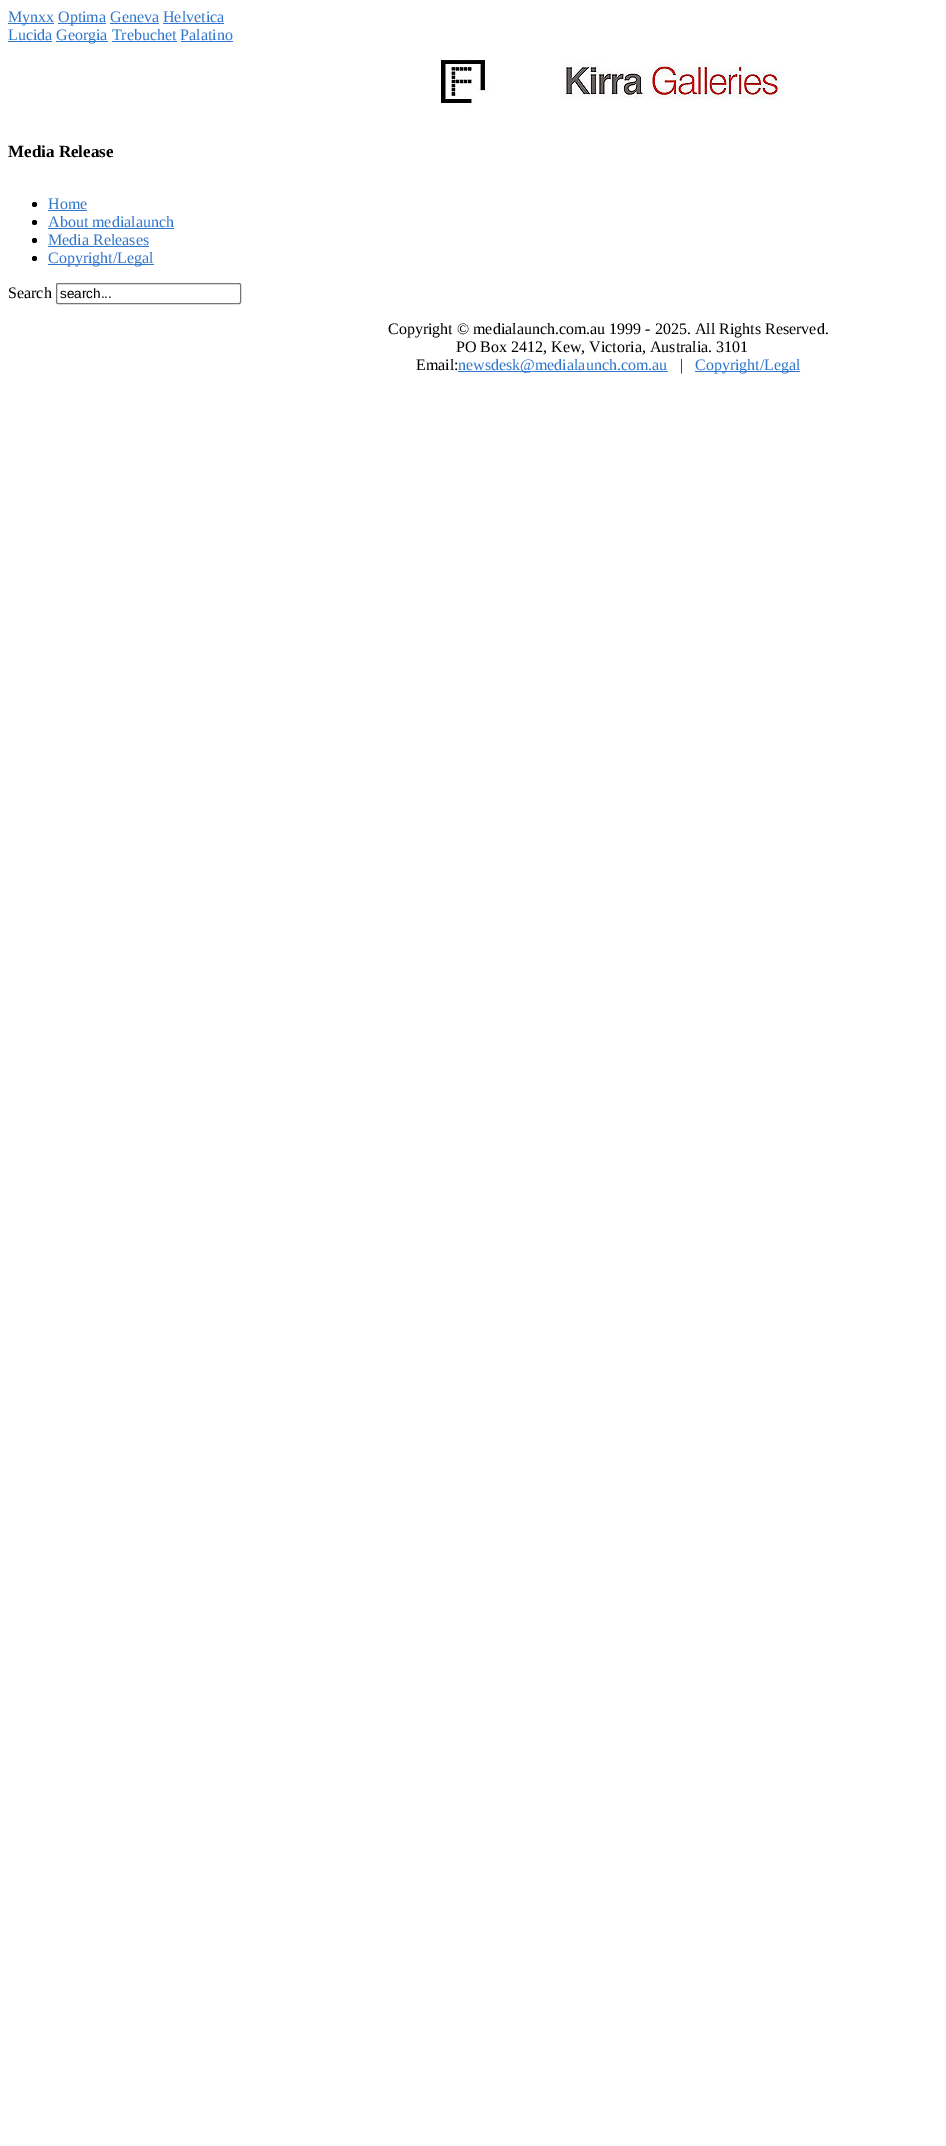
%!PS-Adobe-3.0
%%BoundingBox: 0 0 946 2146
%%LanguageLevel: 3
%%Pages: 1
%%EndComments
%%BeginProlog
/f { fill } bind def
/S { stroke } bind def
/fn { [ exch dup neg 0 0 3 -1 roll 0 0 ] selectfont } def
/tx { moveto show } def
/bx { rectfill } def
/ci { newpath 0 360 arc closepath } def
/rr { 5 dict begin { /r /h /w /y /x } { exch def } forall
  x r add y moveto x w add y 2 copy h add r arct x w add y h add x 1 index r arct
  x y h add x y r arct x y 2 copy exch w add exch r arct closepath end } def
/im { 5 dict begin { /h /w /y /x /name } { exch def } forall
  gsave x y translate w h scale
  w h 8 [w 0 0 h 0 0] name (r) file false 3 colorimage grestore end } def
%%EndProlog
%%BeginSetup
<< /PageSize [946 2146] >> setpagedevice
%%EndSetup
%%Page: 1 1
0 2146 translate 1 -1 scale
4 setmiterlimit
1 setgray
0 0 946 2146 bx
0.184 0.463 0.8 setrgbcolor
8 23 46 1 bx
/LiberationSerif-Regular 16 fn
(Mynxx) 8 22 tx
58 23 48 1 bx
(Optima Geneva Helvetica) 58 22 tx
110 23 49 1 bx
163 23 61 1 bx
(Lucida) 8 40 tx
8 41 44 1 bx
56 41 52 1 bx
(Georgia Trebuchet Palatino) 56 40 tx
112 41 65 1 bx
181 41 52 1 bx
(image0.raw) 441 60 342 46 im
/LiberationSerif-Bold 17 fn
0 setgray
(Media Release) 8 157 tx
34.5 204.5 2.5 ci f
/LiberationSerif-Regular 16 fn
0.184 0.463 0.8 setrgbcolor
(Home) 48 209 tx
48 210 39 1 bx
0 setgray
34.5 222.5 2.5 ci f
0.184 0.463 0.8 setrgbcolor
(About medialaunch) 48 227 tx
48 228 126 1 bx
0 setgray
34.5 240.5 2.5 ci f
0.184 0.463 0.8 setrgbcolor
(Media Releases) 48 245 tx
48 246 101 1 bx
0 setgray
34.5 258.5 2.5 ci f
0.184 0.463 0.8 setrgbcolor
48 264 106 1 bx
(Copyright/Legal) 48 263 tx
0 setgray
(Search) 8 298 tx
0.463 setgray
56.5 283.5 184 20 1.5 rr S
/LiberationSans-Regular 13.5 fn
0 setgray
(search...) 60 298 tx
/LiberationSerif-Regular 16 fn
(Copyright © medialaunch.com.au 1999 - 2025. All Rights Reserved.) 388 334 tx
(PO Box 2412, Kew, Victoria, Australia. 3101) 456 352 tx
(Email:) 416 370 tx
0.184 0.463 0.8 setrgbcolor
458 371 210 1 bx
(newsdesk@medialaunch.com.au) 458 370 tx
0 setgray
(|) 680 370 tx
0.184 0.463 0.8 setrgbcolor
695 371 105 1 bx
(Copyright/Legal) 695 370 tx
showpage
%%EOF
